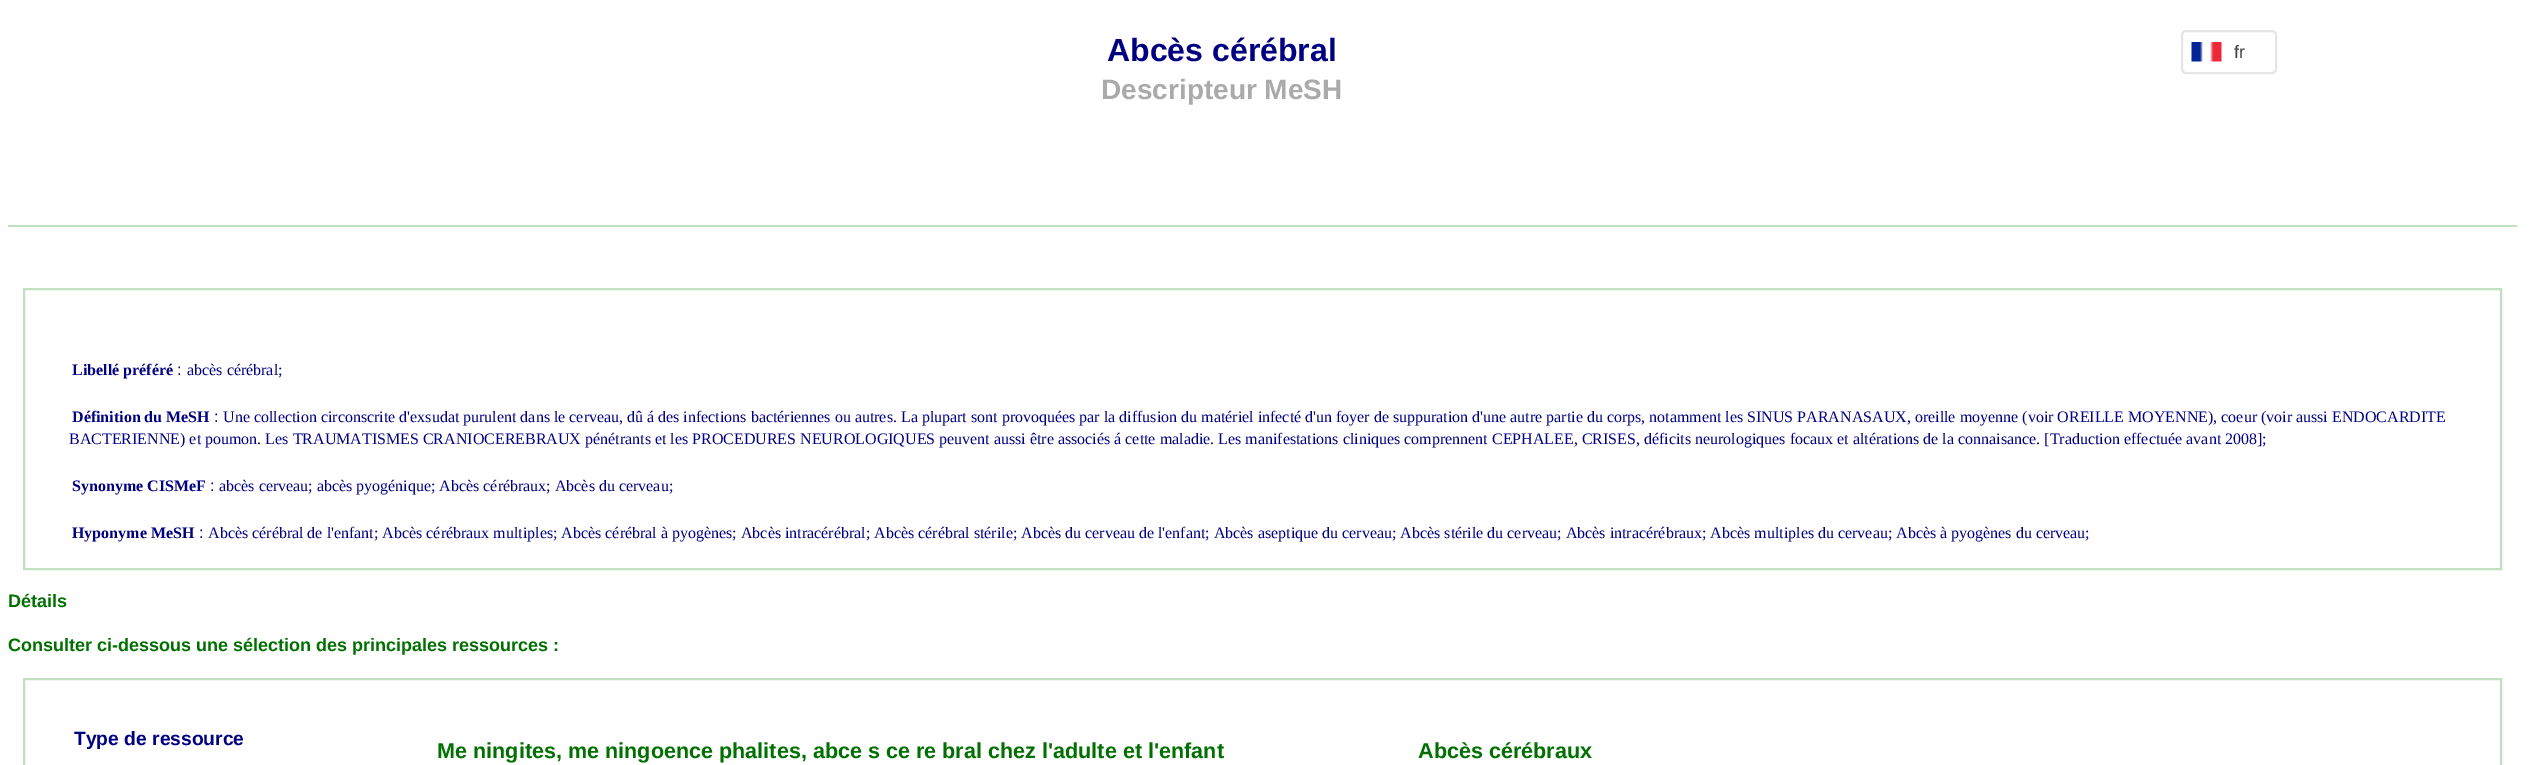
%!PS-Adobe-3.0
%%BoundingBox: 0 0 2534 765
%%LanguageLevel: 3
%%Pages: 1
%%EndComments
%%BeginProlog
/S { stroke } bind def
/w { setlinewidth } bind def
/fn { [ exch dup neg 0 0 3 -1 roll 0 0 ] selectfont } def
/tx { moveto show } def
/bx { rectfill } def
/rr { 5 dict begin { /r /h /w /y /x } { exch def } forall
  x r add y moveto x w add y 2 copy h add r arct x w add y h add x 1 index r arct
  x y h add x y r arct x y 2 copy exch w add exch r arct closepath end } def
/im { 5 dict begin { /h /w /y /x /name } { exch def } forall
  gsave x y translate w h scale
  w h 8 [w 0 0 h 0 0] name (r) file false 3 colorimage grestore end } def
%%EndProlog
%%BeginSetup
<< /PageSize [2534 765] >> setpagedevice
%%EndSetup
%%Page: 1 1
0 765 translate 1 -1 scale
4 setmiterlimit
1 setgray
0 0 2534 765 bx
0.753 0.878 0.753 setrgbcolor
8 225 2509 2 bx
/LiberationSans-Bold 32 fn
0 0 0.502 setrgbcolor
(Abcès cérébral) 1107 61 tx
(image0.raw) 2191 42 31 20 im
0.898 setgray
2 w
2182 31 94 42 4 rr S
/LiberationSans-Regular 18 fn
0.267 setgray
(fr) 2234 58 tx
/LiberationSans-Bold 28 fn
0.667 setgray
(Descripteur MeSH) 1101 99 tx
0.753 0.878 0.753 setrgbcolor
24 289 2477 280 rectstroke
/LiberationSerif-Bold 16 fn
0 0 0.502 setrgbcolor
(Libellé préféré) 72 375 tx
/LiberationSans-Regular 16 fn
(:) 177 375 tx
/LiberationSerif-Regular 16 fn
(abcès cérébral;) 187 375 tx
/LiberationSerif-Bold 16 fn
(Définition du MeSH) 72 422 tx
/LiberationSans-Regular 16 fn
(:) 214 422 tx
/LiberationSerif-Regular 16 fn
(Une collection circonscrite d'exsudat purulent dans le cerveau, dû á des infections bactériennes ou autres. La plupart sont provoquées par la diffusion du matériel infecté d'un foyer de suppuration d'une autre partie du corps, notamment les SINUS PARANASAUX, oreille moyenne \(voir OREILLE MOYENNE\), coeur \(voir aussi ENDOCARDITE) 223 422 tx
(BACTERIENNE\) et poumon. Les TRAUMATISMES CRANIOCEREBRAUX pénétrants et les PROCEDURES NEUROLOGIQUES peuvent aussi être associés á cette maladie. Les manifestations cliniques comprennent CEPHALEE, CRISES, déficits neurologiques focaux et altérations de la connaisance. [Traduction effectuée avant 2008];) 69 444 tx
/LiberationSerif-Bold 16 fn
(Synonyme CISMeF) 72 491 tx
/LiberationSans-Regular 16 fn
(:) 210 491 tx
/LiberationSerif-Regular 16 fn
(abcès cerveau; abcès pyogénique; Abcès cérébraux; Abcès du cerveau;) 219 491 tx
/LiberationSerif-Bold 16 fn
(Hyponyme MeSH) 72 538 tx
/LiberationSans-Regular 16 fn
(:) 199 538 tx
/LiberationSerif-Regular 16 fn
(Abcès cérébral de l'enfant; Abcès cérébraux multiples; Abcès cérébral à pyogènes; Abcès intracérébral; Abcès cérébral stérile; Abcès du cerveau de l'enfant; Abcès aseptique du cerveau; Abcès stérile du cerveau; Abcès intracérébraux; Abcès multiples du cerveau; Abcès à pyogènes du cerveau;) 208 538 tx
/LiberationSans-Bold 18 fn
0 0.439 0 setrgbcolor
(Détails) 8 607 tx
(Consulter ci-dessous une sélection des principales ressources :) 8 651 tx
0.753 0.878 0.753 setrgbcolor
24 679 2477 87 rectstroke
/LiberationSans-Bold 19.25 fn
0 0 0.502 setrgbcolor
(Type de ressource) 74 745 tx
/LiberationSans-Bold 21.6 fn
0 0.439 0 setrgbcolor
(Me ningites, me ningoence phalites, abce s ce re bral chez l'adulte et l'enfant) 437 758 tx
(Abcès cérébraux) 1418 758 tx
showpage
%%EOF
